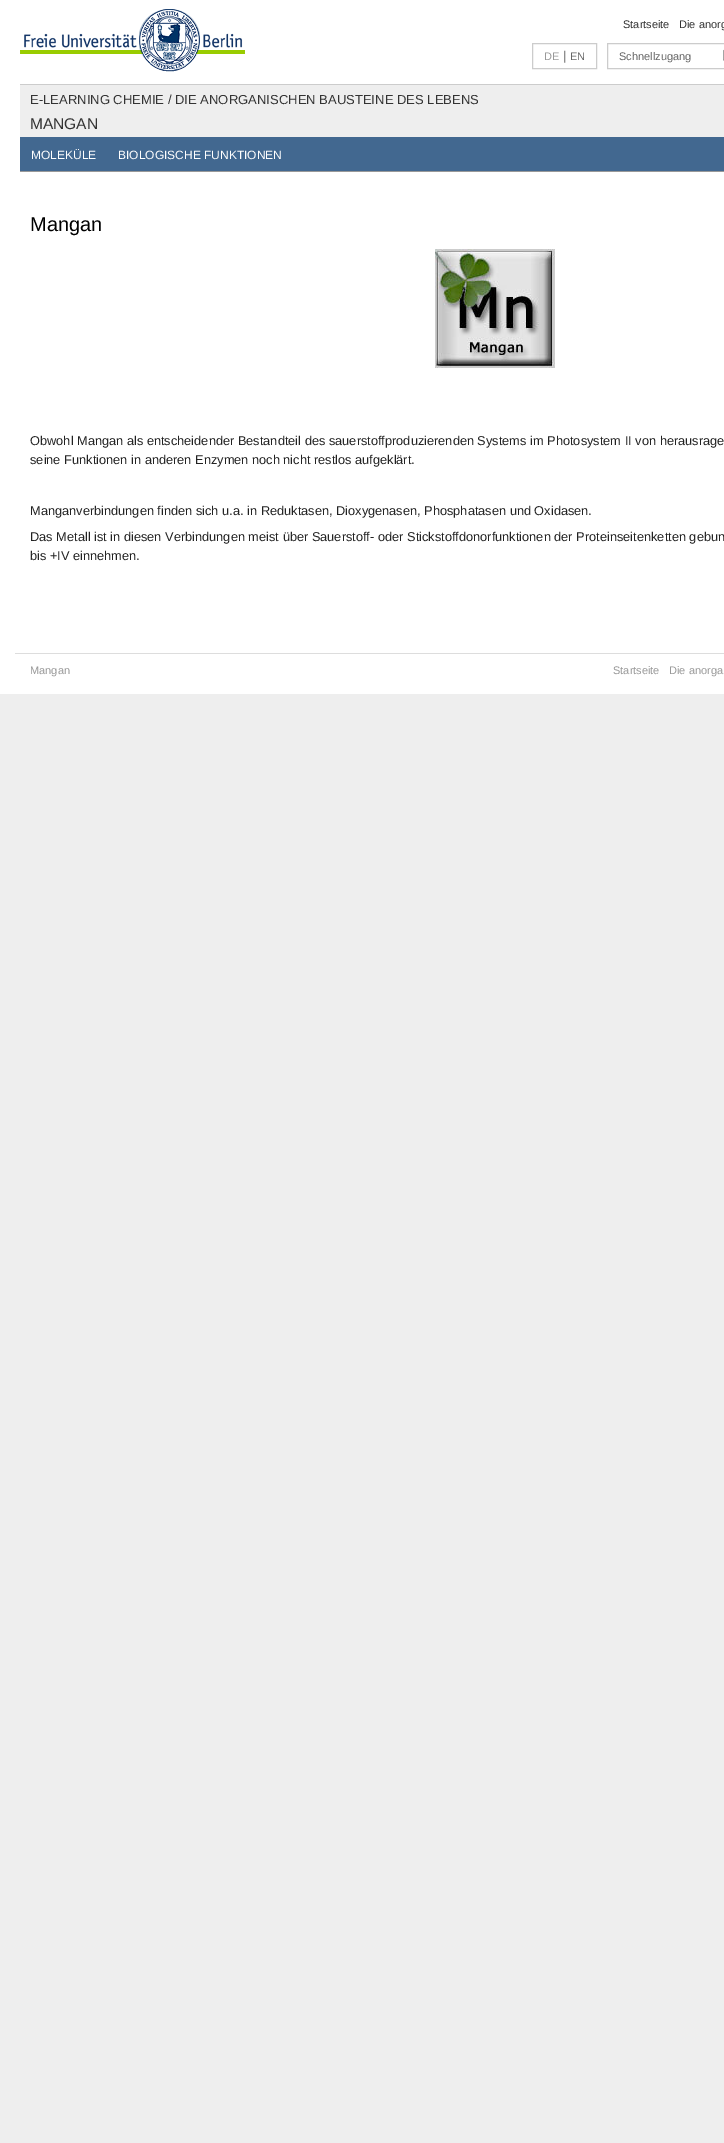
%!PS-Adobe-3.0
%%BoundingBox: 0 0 724 2143
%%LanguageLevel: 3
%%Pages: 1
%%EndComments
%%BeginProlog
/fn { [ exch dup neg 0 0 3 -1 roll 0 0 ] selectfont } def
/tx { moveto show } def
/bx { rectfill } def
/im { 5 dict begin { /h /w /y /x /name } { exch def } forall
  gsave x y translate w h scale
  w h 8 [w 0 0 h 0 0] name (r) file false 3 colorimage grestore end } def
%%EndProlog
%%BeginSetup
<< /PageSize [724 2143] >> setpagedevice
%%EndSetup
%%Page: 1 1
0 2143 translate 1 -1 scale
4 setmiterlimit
0.933 setgray
0 0 724 2143 bx
1 setgray
0 0 724 694 bx
(image0.raw) 20 9 225 63 im
/LiberationSans-Regular 11 fn
0.2 setgray
(Startseite) 623 28 tx
(Die anorg) 679 28 tx
0.8 setgray
532.5 43.5 64 25 rectstroke
0.6 setgray
(DE) 544 60 tx
/LiberationSans-Regular 12.8 fn
0.4 setgray
(|) 563 60 tx
/LiberationSans-Regular 11 fn
(EN) 570 60 tx
0.8 setgray
607.5 43.5 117 25 rectstroke
(image1.raw) 723 49 1 12 im
0.4 setgray
(Schnellzugang) 619 60 tx
0.933 setgray
20 85 704 52 bx
0.8 setgray
20 84 704 1 bx
/LiberationSans-Regular 13.05 fn
0.2 setgray
(E-LEARNING CHEMIE / DIE ANORGANISCHEN BAUSTEINE DES LEBENS) 30 104 tx
/LiberationSans-Regular 15.5 fn
(MANGAN) 30 129 tx
0.6 setgray
20 171 704 1 bx
0.259 0.408 0.565 setrgbcolor
20 137 704 34 bx
/LiberationSans-Regular 12 fn
1 setgray
(MOLEKÜLE) 31 159 tx
(BIOLOGISCHE FUNKTIONEN) 118 159 tx
/LiberationSans-Regular 20 fn
0 setgray
(Mangan) 30 231 tx
(image2.raw) 435 249 120 119 im
/LiberationSans-Regular 12.8 fn
0.133 setgray
(Obwohl Mangan als entscheidender Bestandteil des sauerstoffproduzierenden Systems im Photosystem II von herausrage) 30 445 tx
(seine Funktionen in anderen Enzymen noch nicht restlos aufgeklärt.) 30 464 tx
(Manganverbindungen finden sich u.a. in Reduktasen, Dioxygenasen, Phosphatasen und Oxidasen.) 30 515 tx
(Das Metall ist in diesen Verbindungen meist über Sauerstoff- oder Stickstoffdonorfunktionen der Proteinseitenketten gebun) 30 541 tx
(bis +IV einnehmen.) 30 560 tx
0.867 setgray
15 653 709 1 bx
/LiberationSans-Regular 11 fn
0.6 setgray
(Mangan) 30 674 tx
(Startseite) 613 674 tx
(Die anorga) 669 674 tx
showpage
%%EOF
